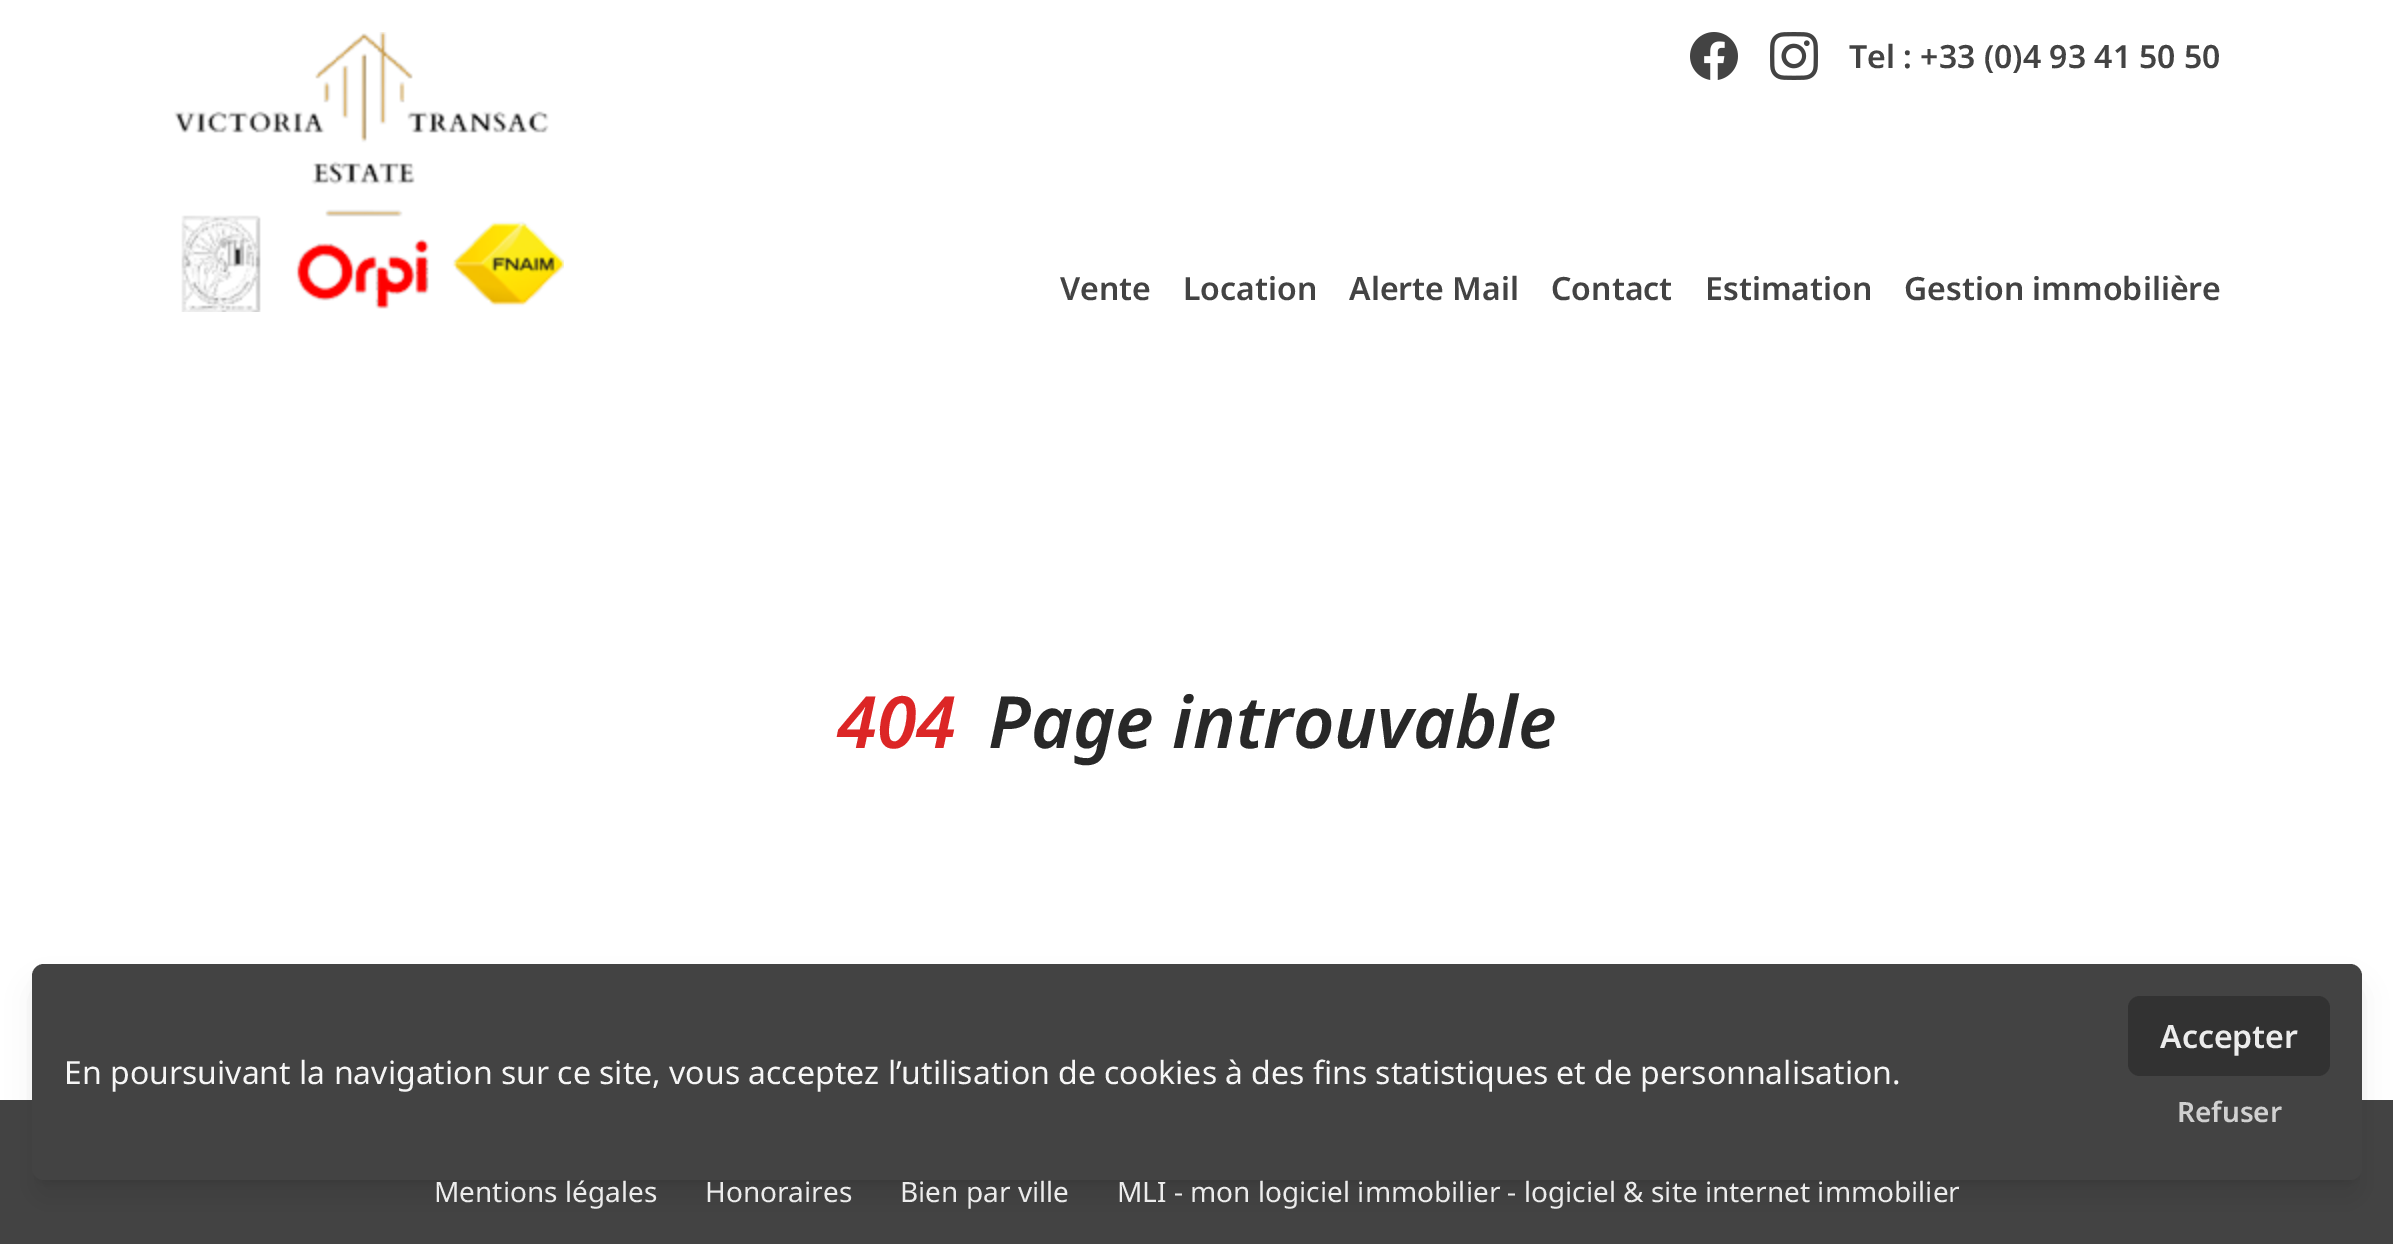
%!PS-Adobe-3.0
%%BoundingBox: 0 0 2393 1244
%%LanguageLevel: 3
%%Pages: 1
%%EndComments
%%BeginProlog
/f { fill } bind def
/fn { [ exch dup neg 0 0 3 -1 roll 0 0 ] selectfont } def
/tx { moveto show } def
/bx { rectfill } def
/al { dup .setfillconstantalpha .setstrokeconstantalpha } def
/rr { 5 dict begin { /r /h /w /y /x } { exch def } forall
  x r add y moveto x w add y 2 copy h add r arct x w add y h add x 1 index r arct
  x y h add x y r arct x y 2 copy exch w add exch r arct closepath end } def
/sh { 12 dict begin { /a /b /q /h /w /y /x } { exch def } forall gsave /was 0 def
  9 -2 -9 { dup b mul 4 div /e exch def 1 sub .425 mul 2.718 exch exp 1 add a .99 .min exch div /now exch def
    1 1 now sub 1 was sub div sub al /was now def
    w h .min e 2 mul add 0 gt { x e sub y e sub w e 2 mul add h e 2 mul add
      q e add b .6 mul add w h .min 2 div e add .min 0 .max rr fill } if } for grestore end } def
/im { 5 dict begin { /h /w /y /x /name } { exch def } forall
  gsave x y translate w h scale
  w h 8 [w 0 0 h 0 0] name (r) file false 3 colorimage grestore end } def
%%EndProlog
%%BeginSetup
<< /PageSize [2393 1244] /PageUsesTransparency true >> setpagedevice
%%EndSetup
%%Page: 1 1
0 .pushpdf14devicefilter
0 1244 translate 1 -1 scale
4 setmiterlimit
1 setgray
0 0 2393 1244 bx
(image0.raw) 174 32 390 280 im
(image1.raw) 1690 32 48 48 im
(image2.raw) 1770 32 48 48 im
/NotoSans-SemiBold 32 fn
0.263 setgray
(Tel : +33 \(0\)4 93 41 50 50) 1849 68 tx
(Vente) 1060 300 tx
(Location) 1183 300 tx
(Alerte Mail) 1349 300 tx
(Contact) 1551 300 tx
(Estimation) 1705 300 tx
(Gestion immobilière) 1904 300 tx
/NotoSans-SemiBoldItalic 72 fn
0.863 0.149 0.149 setrgbcolor
(404) 837 748 tx
0.157 setgray
(Page introuvable) 988 748 tx
0.263 setgray
0 1100 2393 144 bx
0 setgray
40 980 2314 200 4 6 0.1 sh
38 990 2318 204 6 15 0.1 sh
0.263 setgray
32 964 2330 216 12 rr f
/NotoSans-Regular 32 fn
0.965 setgray
(En poursuivant la navigation sur ce site, vous acceptez l’utilisation de cookies à des fins statistiques et de personnalisation.) 64 1084 tx
0.196 setgray
2128 996 202 80 12 rr f
/NotoSans-SemiBold 32 fn
0.925 setgray
(Accepter) 2160 1048 tx
/NotoSans-SemiBold 28 fn
0.816 setgray
(Refuser) 2177 1122 tx
/NotoSans-Regular 28 fn
0.925 setgray
(Mentions légales) 434 1202 tx
(Honoraires) 705 1202 tx
(Bien par ville) 900 1202 tx
(MLI - mon logiciel immobilier - logiciel & site internet immobilier) 1117 1202 tx
.poppdf14devicefilter showpage
%%EOF
